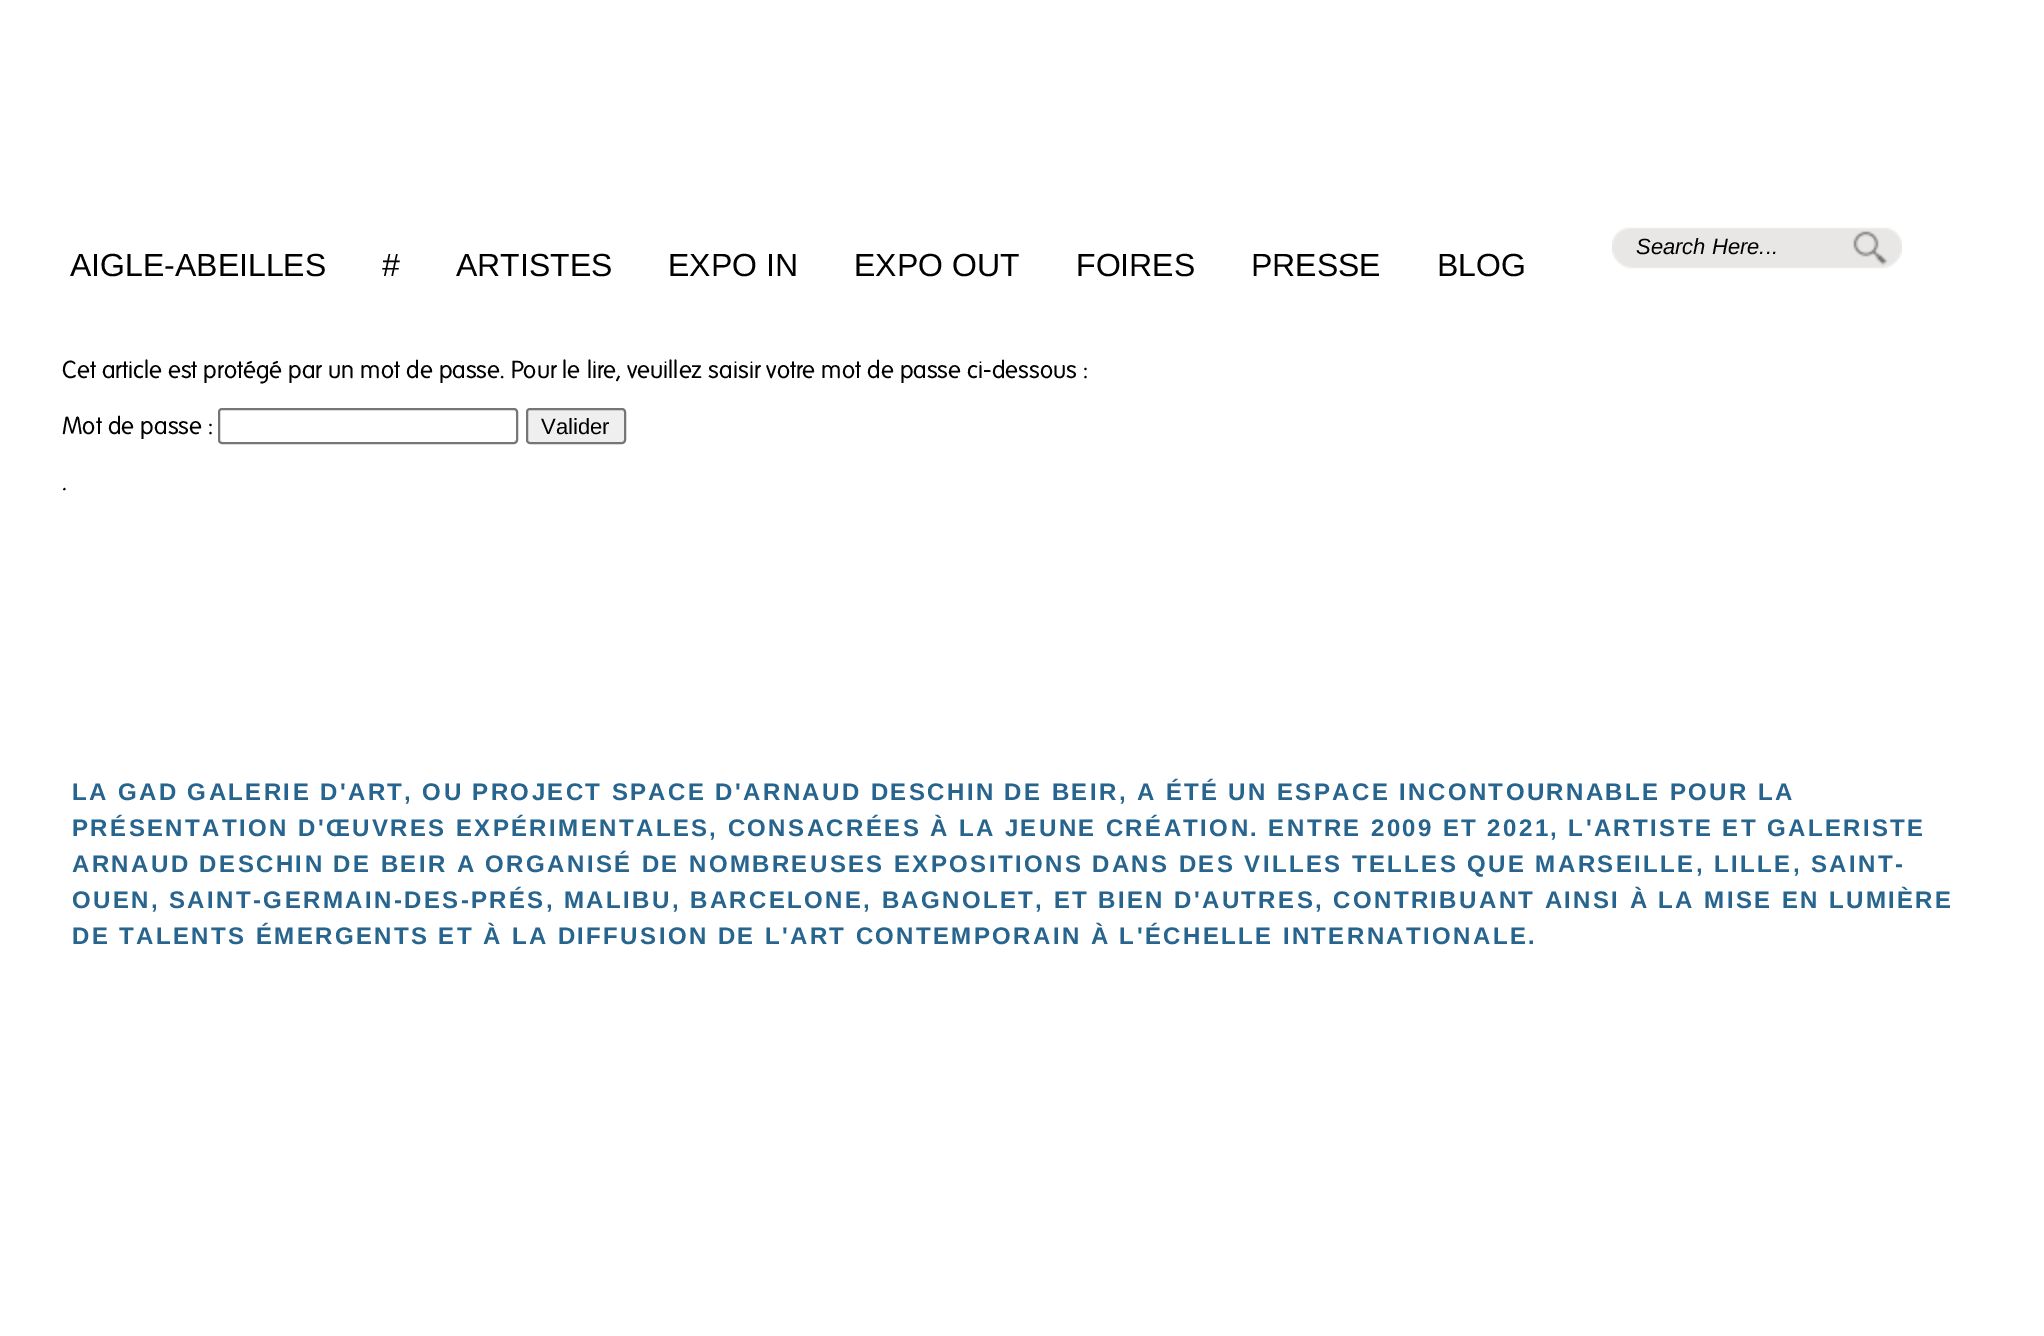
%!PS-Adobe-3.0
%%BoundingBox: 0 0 2044 1336
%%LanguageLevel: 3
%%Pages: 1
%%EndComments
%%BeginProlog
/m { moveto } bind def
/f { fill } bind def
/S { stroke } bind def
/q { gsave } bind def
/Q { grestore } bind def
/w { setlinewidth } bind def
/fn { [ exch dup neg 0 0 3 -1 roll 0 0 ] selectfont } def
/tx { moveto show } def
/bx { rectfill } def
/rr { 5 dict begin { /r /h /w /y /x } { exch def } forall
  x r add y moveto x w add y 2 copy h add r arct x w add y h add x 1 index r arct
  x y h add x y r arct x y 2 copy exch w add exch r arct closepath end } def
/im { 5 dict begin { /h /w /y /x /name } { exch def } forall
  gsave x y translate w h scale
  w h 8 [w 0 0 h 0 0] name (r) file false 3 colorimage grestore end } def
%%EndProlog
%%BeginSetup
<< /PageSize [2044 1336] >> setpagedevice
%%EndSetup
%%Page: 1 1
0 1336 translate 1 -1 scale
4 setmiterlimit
1 setgray
0 0 2044 1336 bx
(image0.raw) 1612 227 290 42 im
/LiberationSans-Italic 22 fn
0 setgray
(Search Here...) 1636 254 tx
/LiberationSans-Regular 32 fn
(AIGLE-ABEILLES) 70 276 tx
(#) 382 276 tx
(ARTISTES) 456 276 tx
(EXPO IN) 668 276 tx
(EXPO OUT) 854 276 tx
(FOIRES) 1076 276 tx
(PRESSE) 1251 276 tx
(BLOG) 1437 276 tx
/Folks-Regular 24 fn
(Cet article est protégé par un mot de passe. Pour le lire, veuillez saisir votre mot de passe ci-dessous :) 62 378 tx
(Mot de passe :) 62 434 tx
0.463 setgray
2 w
219 409 298 34 3 rr S
0.937 setgray
527 409 98 34 3 rr q f Q
0.463 setgray
S
/LiberationSans-Regular 22 fn
0 setgray
(Valider) 541 434 tx
/Folks-Italic 24 fn
(.) 62 490 tx
/LiberationSans-Bold 24 fn
0.157 0.396 0.557 setrgbcolor
72 800 m 2.4 0 (LA GAD GALERIE D'ART, OU PROJECT SPACE D'ARNAUD DESCHIN DE BEIR, A ÉTÉ UN ESPACE INCONTOURNABLE POUR LA) ashow
72 836 m 2.4 0 (PRÉSENTATION D'ŒUVRES EXPÉRIMENTALES, CONSACRÉES À LA JEUNE CRÉATION. ENTRE 2009 ET 2021, L'ARTISTE ET GALERISTE) ashow
72 872 m 2.4 0 (ARNAUD DESCHIN DE BEIR A ORGANISÉ DE NOMBREUSES EXPOSITIONS DANS DES VILLES TELLES QUE MARSEILLE, LILLE, SAINT-) ashow
72 908 m 2.4 0 (OUEN, SAINT-GERMAIN-DES-PRÉS, MALIBU, BARCELONE, BAGNOLET, ET BIEN D'AUTRES, CONTRIBUANT AINSI À LA MISE EN LUMIÈRE) ashow
72 944 m 2.4 0 (DE TALENTS ÉMERGENTS ET À LA DIFFUSION DE L'ART CONTEMPORAIN À L'ÉCHELLE INTERNATIONALE.) ashow
showpage
%%EOF
